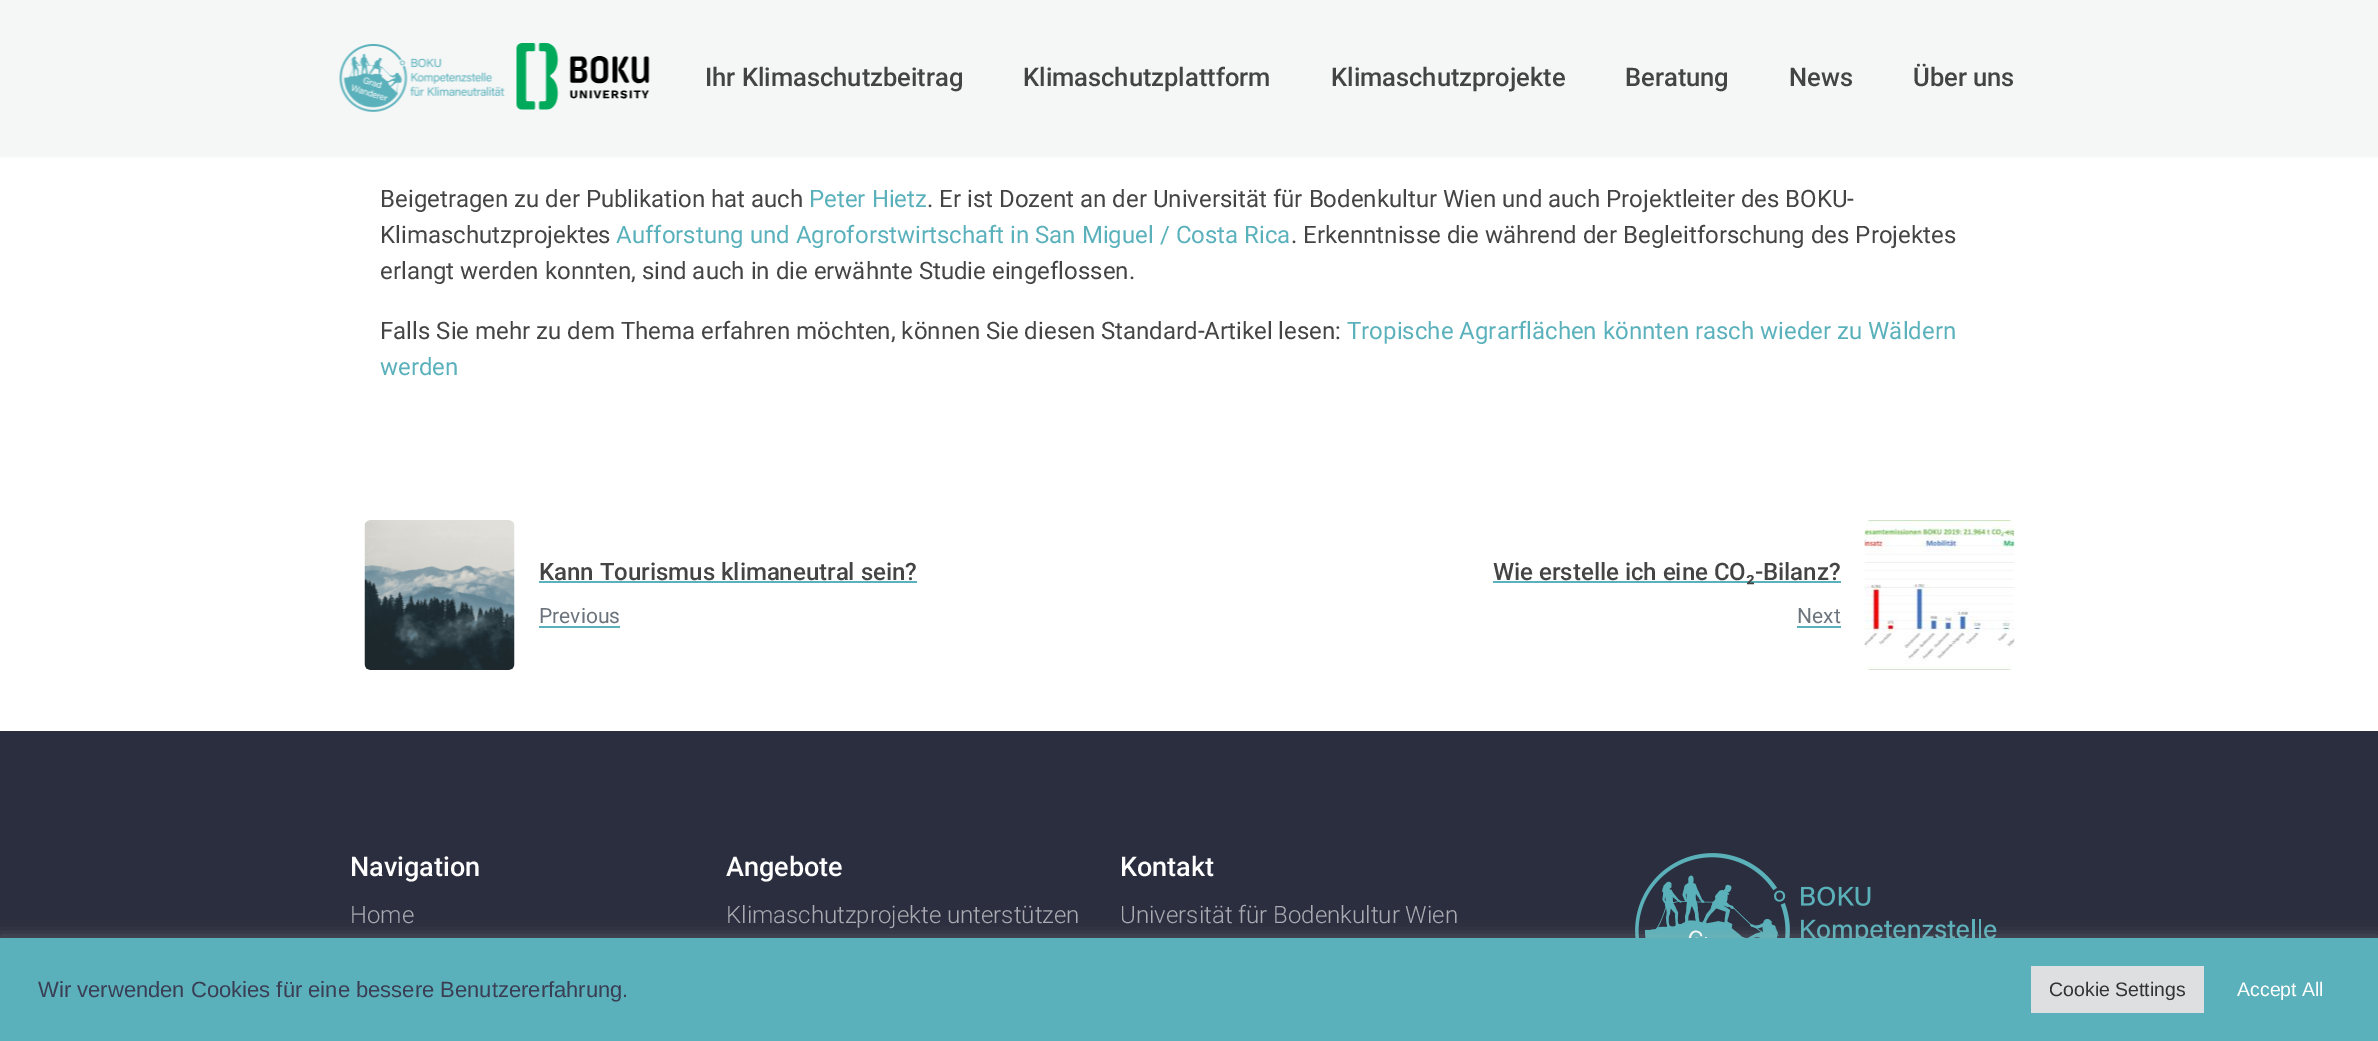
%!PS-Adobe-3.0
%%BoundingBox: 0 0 2378 1041
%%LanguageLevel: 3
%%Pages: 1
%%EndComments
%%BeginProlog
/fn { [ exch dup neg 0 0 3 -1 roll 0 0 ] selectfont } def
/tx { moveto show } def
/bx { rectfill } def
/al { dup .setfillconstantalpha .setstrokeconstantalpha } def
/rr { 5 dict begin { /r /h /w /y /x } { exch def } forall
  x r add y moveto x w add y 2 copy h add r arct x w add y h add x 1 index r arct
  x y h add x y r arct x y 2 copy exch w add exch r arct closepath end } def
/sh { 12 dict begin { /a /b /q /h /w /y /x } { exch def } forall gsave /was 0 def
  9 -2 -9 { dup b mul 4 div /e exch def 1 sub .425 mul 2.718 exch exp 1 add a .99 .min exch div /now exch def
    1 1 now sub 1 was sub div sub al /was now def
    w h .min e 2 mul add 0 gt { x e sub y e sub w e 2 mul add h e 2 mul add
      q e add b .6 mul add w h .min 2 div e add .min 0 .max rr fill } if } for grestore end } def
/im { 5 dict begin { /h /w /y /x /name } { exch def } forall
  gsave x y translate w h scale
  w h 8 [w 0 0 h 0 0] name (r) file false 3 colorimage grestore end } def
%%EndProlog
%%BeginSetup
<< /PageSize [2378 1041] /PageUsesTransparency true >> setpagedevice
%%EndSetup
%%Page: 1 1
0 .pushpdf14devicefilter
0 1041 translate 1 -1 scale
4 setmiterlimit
1 setgray
0 0 2378 1041 bx
0.961 0.969 0.969 setrgbcolor
0 0 2378 156 bx
0.969 0.98 0.976 setrgbcolor
0 156 2378 2 bx
(image0.raw) 339 43 311 69 im
/Roboto-Medium 25.5 fn
0.267 setgray
(Ihr Klimaschutzbeitrag) 705 86 tx
(Klimaschutzplattform) 1023 86 tx
(Klimaschutzprojekte) 1331 86 tx
(Beratung) 1625 86 tx
(News) 1789 86 tx
(Über uns) 1913 86 tx
/Roboto-Regular 24 fn
(Beigetragen zu der Publikation hat auch) 380 207 tx
0.353 0.694 0.733 setrgbcolor
(Peter Hietz) 809 207 tx
0.267 setgray
(. Er ist Dozent an der Universität für Bodenkultur Wien und auch Projektleiter des BOKU-) 927 207 tx
(Klimaschutzprojektes) 380 243 tx
0.353 0.694 0.733 setrgbcolor
(Aufforstung und Agroforstwirtschaft in San Miguel / Costa Rica) 616 243 tx
0.267 setgray
(. Erkenntnisse die während der Begleitforschung des Projektes) 1291 243 tx
(erlangt werden konnten, sind auch in die erwähnte Studie eingeflossen.) 380 279 tx
(Falls Sie mehr zu dem Thema erfahren möchten, können Sie diesen Standard-Artikel lesen:) 380 339 tx
0.353 0.694 0.733 setrgbcolor
(Tropische Agrarflächen könnten rasch wieder zu Wäldern) 1347 339 tx
(werden) 380 375 tx
(image1.raw) 364 520 151 150 im
/Roboto-Medium 24 fn
0.267 setgray
(Kann Tourismus klimaneutral sein?) 539 580 tx
0.353 0.694 0.733 setrgbcolor
539 581 378 2 bx
/Roboto-Regular 21 fn
0.424 0.459 0.49 setrgbcolor
(Previous) 539 623 tx
0.353 0.694 0.733 setrgbcolor
539 626 81 2 bx
1493 581 348 2 bx
/Roboto-Medium 24 fn
0.267 setgray
(Wie erstelle ich eine CO₂-Bilanz?) 1493 580 tx
/Roboto-Regular 21 fn
0.424 0.459 0.49 setrgbcolor
(Next) 1797 623 tx
0.353 0.694 0.733 setrgbcolor
1797 626 44 2 bx
(image2.raw) 1864 520 151 150 im
0.169 0.18 0.243 setrgbcolor
0 731 2378 207 bx
/Roboto-Medium 27 fn
1 setgray
(Navigation) 350 876 tx
/Roboto-Light 24 fn
0.667 0.671 0.698 setrgbcolor
(Home) 350 923 tx
/Roboto-Medium 27 fn
1 setgray
(Angebote) 726 876 tx
/Roboto-Light 24 fn
0.667 0.671 0.698 setrgbcolor
(Klimaschutzprojekte unterstützen) 726 923 tx
/Roboto-Medium 27 fn
1 setgray
(Kontakt) 1120 876 tx
/Roboto-Light 24 fn
0.667 0.671 0.698 setrgbcolor
(Universität für Bodenkultur Wien) 1120 923 tx
(image3.raw) 1635 853 362 85 im
0.675 0.671 0.671 setrgbcolor
0 936 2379 104 0 7.5 0.3 sh
0.353 0.694 0.733 setrgbcolor
0 938 2378 103 bx
/LiberationSans-Regular 22 fn
0.227 0.243 0.329 setrgbcolor
(Wir verwenden Cookies für eine bessere Benutzererfahrung.) 38 997 tx
0.871 0.875 0.878 setrgbcolor
2031 966 173 47 bx
/LiberationSans-Regular 19.5 fn
0.2 setgray
(Cookie Settings) 2049 996 tx
1 setgray
(Accept All) 2237 996 tx
.poppdf14devicefilter showpage
%%EOF
